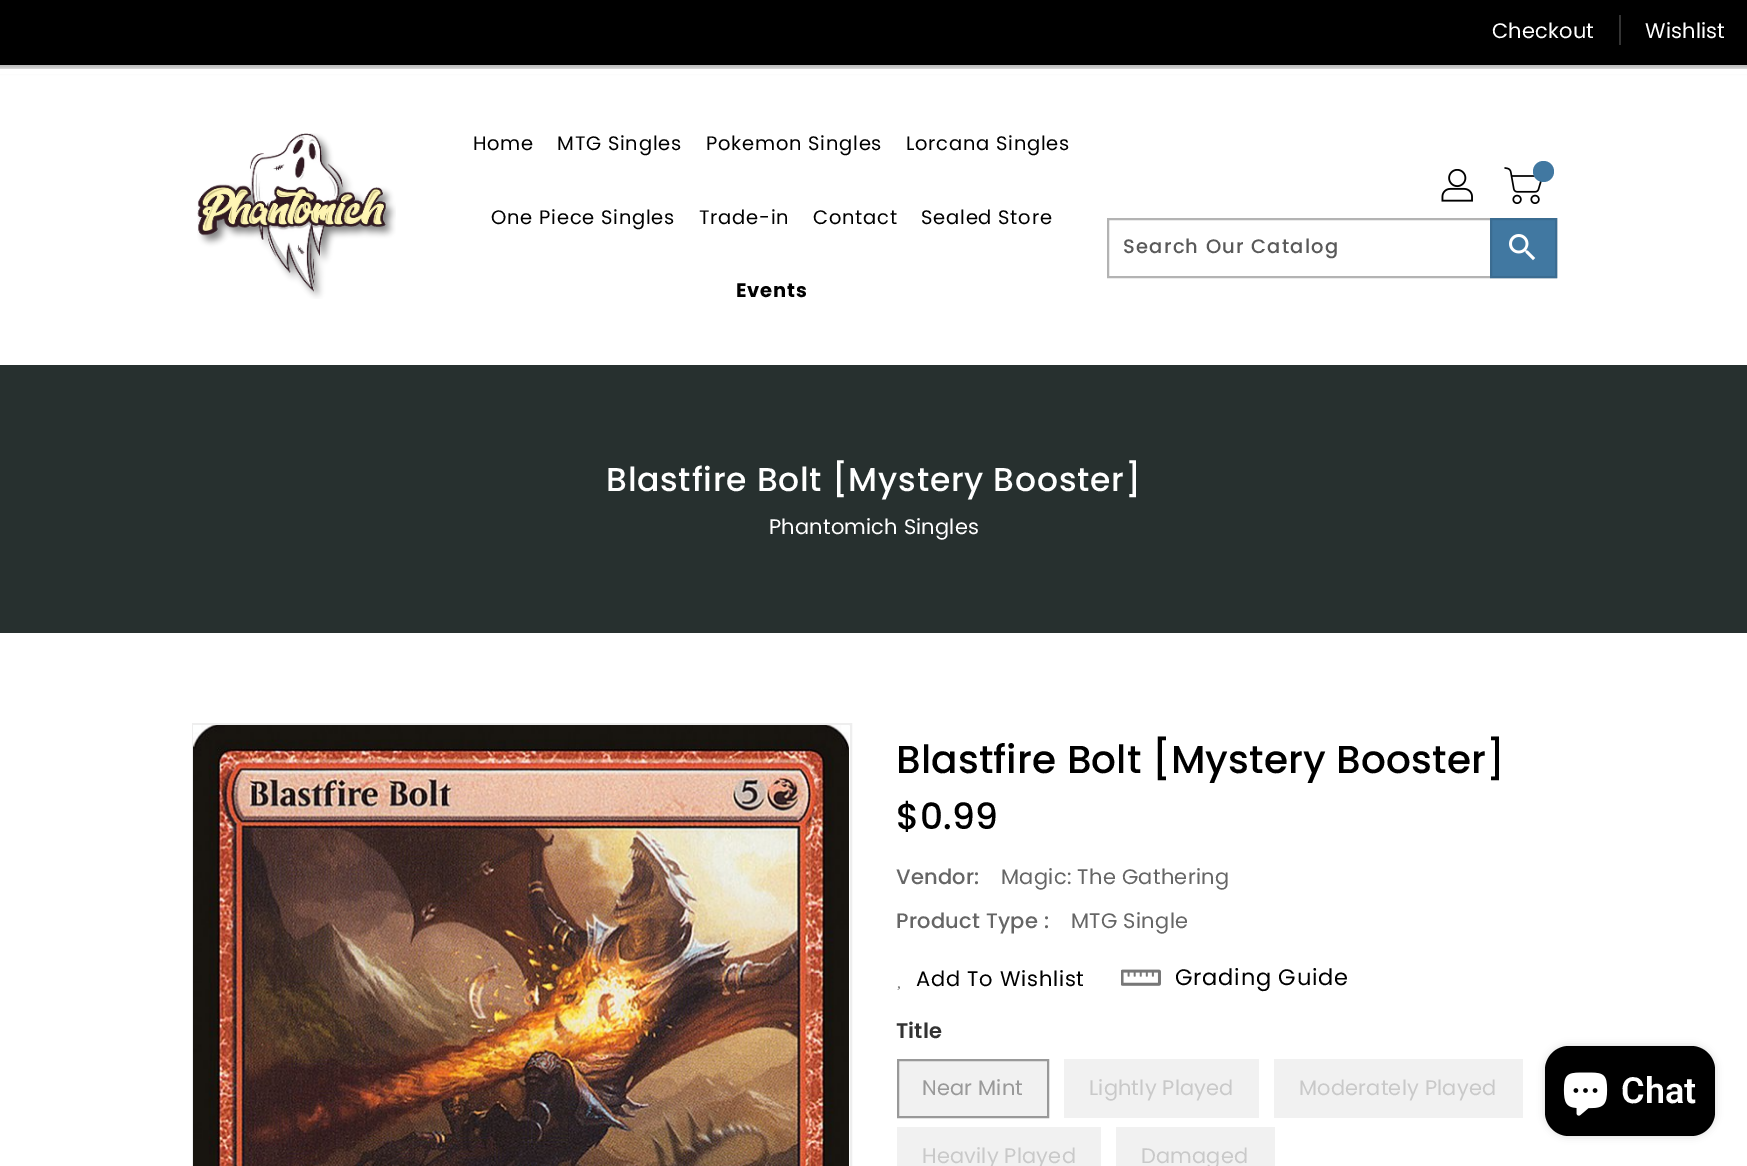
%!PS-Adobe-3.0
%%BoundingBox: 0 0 1747 1166
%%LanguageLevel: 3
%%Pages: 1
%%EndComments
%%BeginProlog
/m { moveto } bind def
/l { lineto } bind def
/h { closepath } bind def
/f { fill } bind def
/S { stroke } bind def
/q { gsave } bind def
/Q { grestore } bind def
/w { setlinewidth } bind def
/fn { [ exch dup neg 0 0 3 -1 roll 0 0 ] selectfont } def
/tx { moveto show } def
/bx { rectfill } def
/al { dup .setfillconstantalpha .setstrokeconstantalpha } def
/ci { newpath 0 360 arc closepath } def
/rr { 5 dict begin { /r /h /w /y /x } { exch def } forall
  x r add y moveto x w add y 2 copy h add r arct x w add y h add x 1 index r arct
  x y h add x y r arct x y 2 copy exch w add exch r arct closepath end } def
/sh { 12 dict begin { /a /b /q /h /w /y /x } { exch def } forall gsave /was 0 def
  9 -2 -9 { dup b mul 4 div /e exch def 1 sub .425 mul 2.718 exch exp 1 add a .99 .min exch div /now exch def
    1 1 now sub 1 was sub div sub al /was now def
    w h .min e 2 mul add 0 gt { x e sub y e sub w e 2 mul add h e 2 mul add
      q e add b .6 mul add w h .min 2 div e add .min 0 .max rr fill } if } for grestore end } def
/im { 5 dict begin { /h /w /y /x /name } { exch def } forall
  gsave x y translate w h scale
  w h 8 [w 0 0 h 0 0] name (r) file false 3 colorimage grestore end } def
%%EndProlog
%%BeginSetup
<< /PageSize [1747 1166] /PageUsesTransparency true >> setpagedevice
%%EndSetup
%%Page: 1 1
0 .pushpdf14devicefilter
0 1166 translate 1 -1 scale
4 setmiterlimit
1 setgray
0 0 1747 1166 bx
0 setgray
-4 -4 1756 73 0 3 0.3 sh
0 0 1747 65 bx
/Poppins-Regular 21 fn
1 setgray
1492 38 m 0.15 0 (Checkout) ashow
0.2 setgray
1619 15 2 30 bx
1 setgray
1645 38 m 0.15 0 (Wishlist) ashow
0 69 1747 5 bx
(image0.raw) 197 133 199 166 im
/Poppins-Regular 19.5 fn
0 setgray
473 150 m 0.75 0 (Home) ashow
557 150 m 0.75 0 (MTG Singles) ashow
706 150 m 0.75 0 (Pokemon Singles) ashow
906 150 m 0.75 0 (Lorcana Singles) ashow
491 224 m 0.75 0 (One Piece Singles) ashow
699 224 m 0.75 0 (Trade-in) ashow
813 224 m 0.75 0 (Contact) ashow
921 224 m 0.75 0 (Sealed Store) ashow
/Poppins-Bold 19.5 fn
736 297 m 0.75 0 (Events) ashow
(image1.raw) 1441 169 32 33 im
(image2.raw) 1504 167 38 37 im
0.255 0.471 0.631 setrgbcolor
1543.5 171.5 10.5 ci f
0.702 setgray
2 w
1108 219 448 58 rectstroke
/Poppins-Medium 19.5 fn
0.349 setgray
1123 253 m 1.25 0 (Search Our Catalog) ashow
0.255 0.471 0.631 setrgbcolor
1491 219 m 1556 219 l 1556 277 l 1491 277 l h q f Q
0.231 0.424 0.569 setrgbcolor
S
(image3.raw) 1509 234 27 27 im
0.153 0.188 0.184 setrgbcolor
0 365 1747 268 bx
/Poppins-Medium 33 fn
1 setgray
606 491 m 0.75 0 (Blastfire Bolt [Mystery Booster]) ashow
/Poppins-Regular 21 fn
769 534 m 0.15 0 (Phantomich Singles) ashow
0.933 setgray
193 724 658 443 rectstroke
(image4.raw) 193 725 656 441 im
/Poppins-Medium 39 fn
0 setgray
896 773 m 0.15 0 (Blastfire Bolt [Mystery Booster]) ashow
/Poppins-Medium 36 fn
896 829 m 0.15 0 ($0.99) ashow
/Poppins-Medium 21 fn
0.4 setgray
896 884 m 0.25 0 (Vendor:) ashow
/Poppins-Regular 21 fn
1001 884 m 0.25 0 (Magic: The Gathering) ashow
/Poppins-Medium 21 fn
896 928 m 0.25 0 (Product Type :) ashow
/Poppins-Regular 21 fn
1071 928 m 0.25 0 (MTG Single) ashow
0 setgray
916 986 m 0.75 0 (Add To Wishlist) ashow
(image5.raw) 897 986 3 4 im
(image6.raw) 1121 969 40 17 im
/Poppins-Regular 22.5 fn
1175 985 m 0.75 0 (Grading Guide) ashow
/Poppins-SemiBold 21 fn
0.2 setgray
896 1038 m 0.15 0 (Title) ashow
0.945 setgray
898 1060 m 1048 1060 l 1048 1117 l 898 1117 l h q f Q
0.6 setgray
S
/Poppins-Regular 21 fn
922 1095 m 0.15 0 (Near Mint) ashow
0.945 setgray
1064 1059 195 59 bx
0.788 setgray
1089 1095 m 0.15 0 (Lightly Played) ashow
0.945 setgray
1274 1059 249 59 bx
0.788 setgray
1299 1095 m 0.15 0 (Moderately Played) ashow
0.945 setgray
897 1127 204 39 bx
0.788 setgray
922 1163 m 0.15 0 (Heavily Played) ashow
0.945 setgray
1116 1127 159 39 bx
0.788 setgray
1141 1163 m 0.15 0 (Damaged) ashow
0 setgray
1545 1046 170 90 24 4 0.15 sh
1545 1046 170 90 24 rr f
(image7.raw) 1563 1072 45 44 im
/Roboto-SemiBold 36 fn
1 setgray
(Chat) 1621 1103 tx
.poppdf14devicefilter showpage
%%EOF
